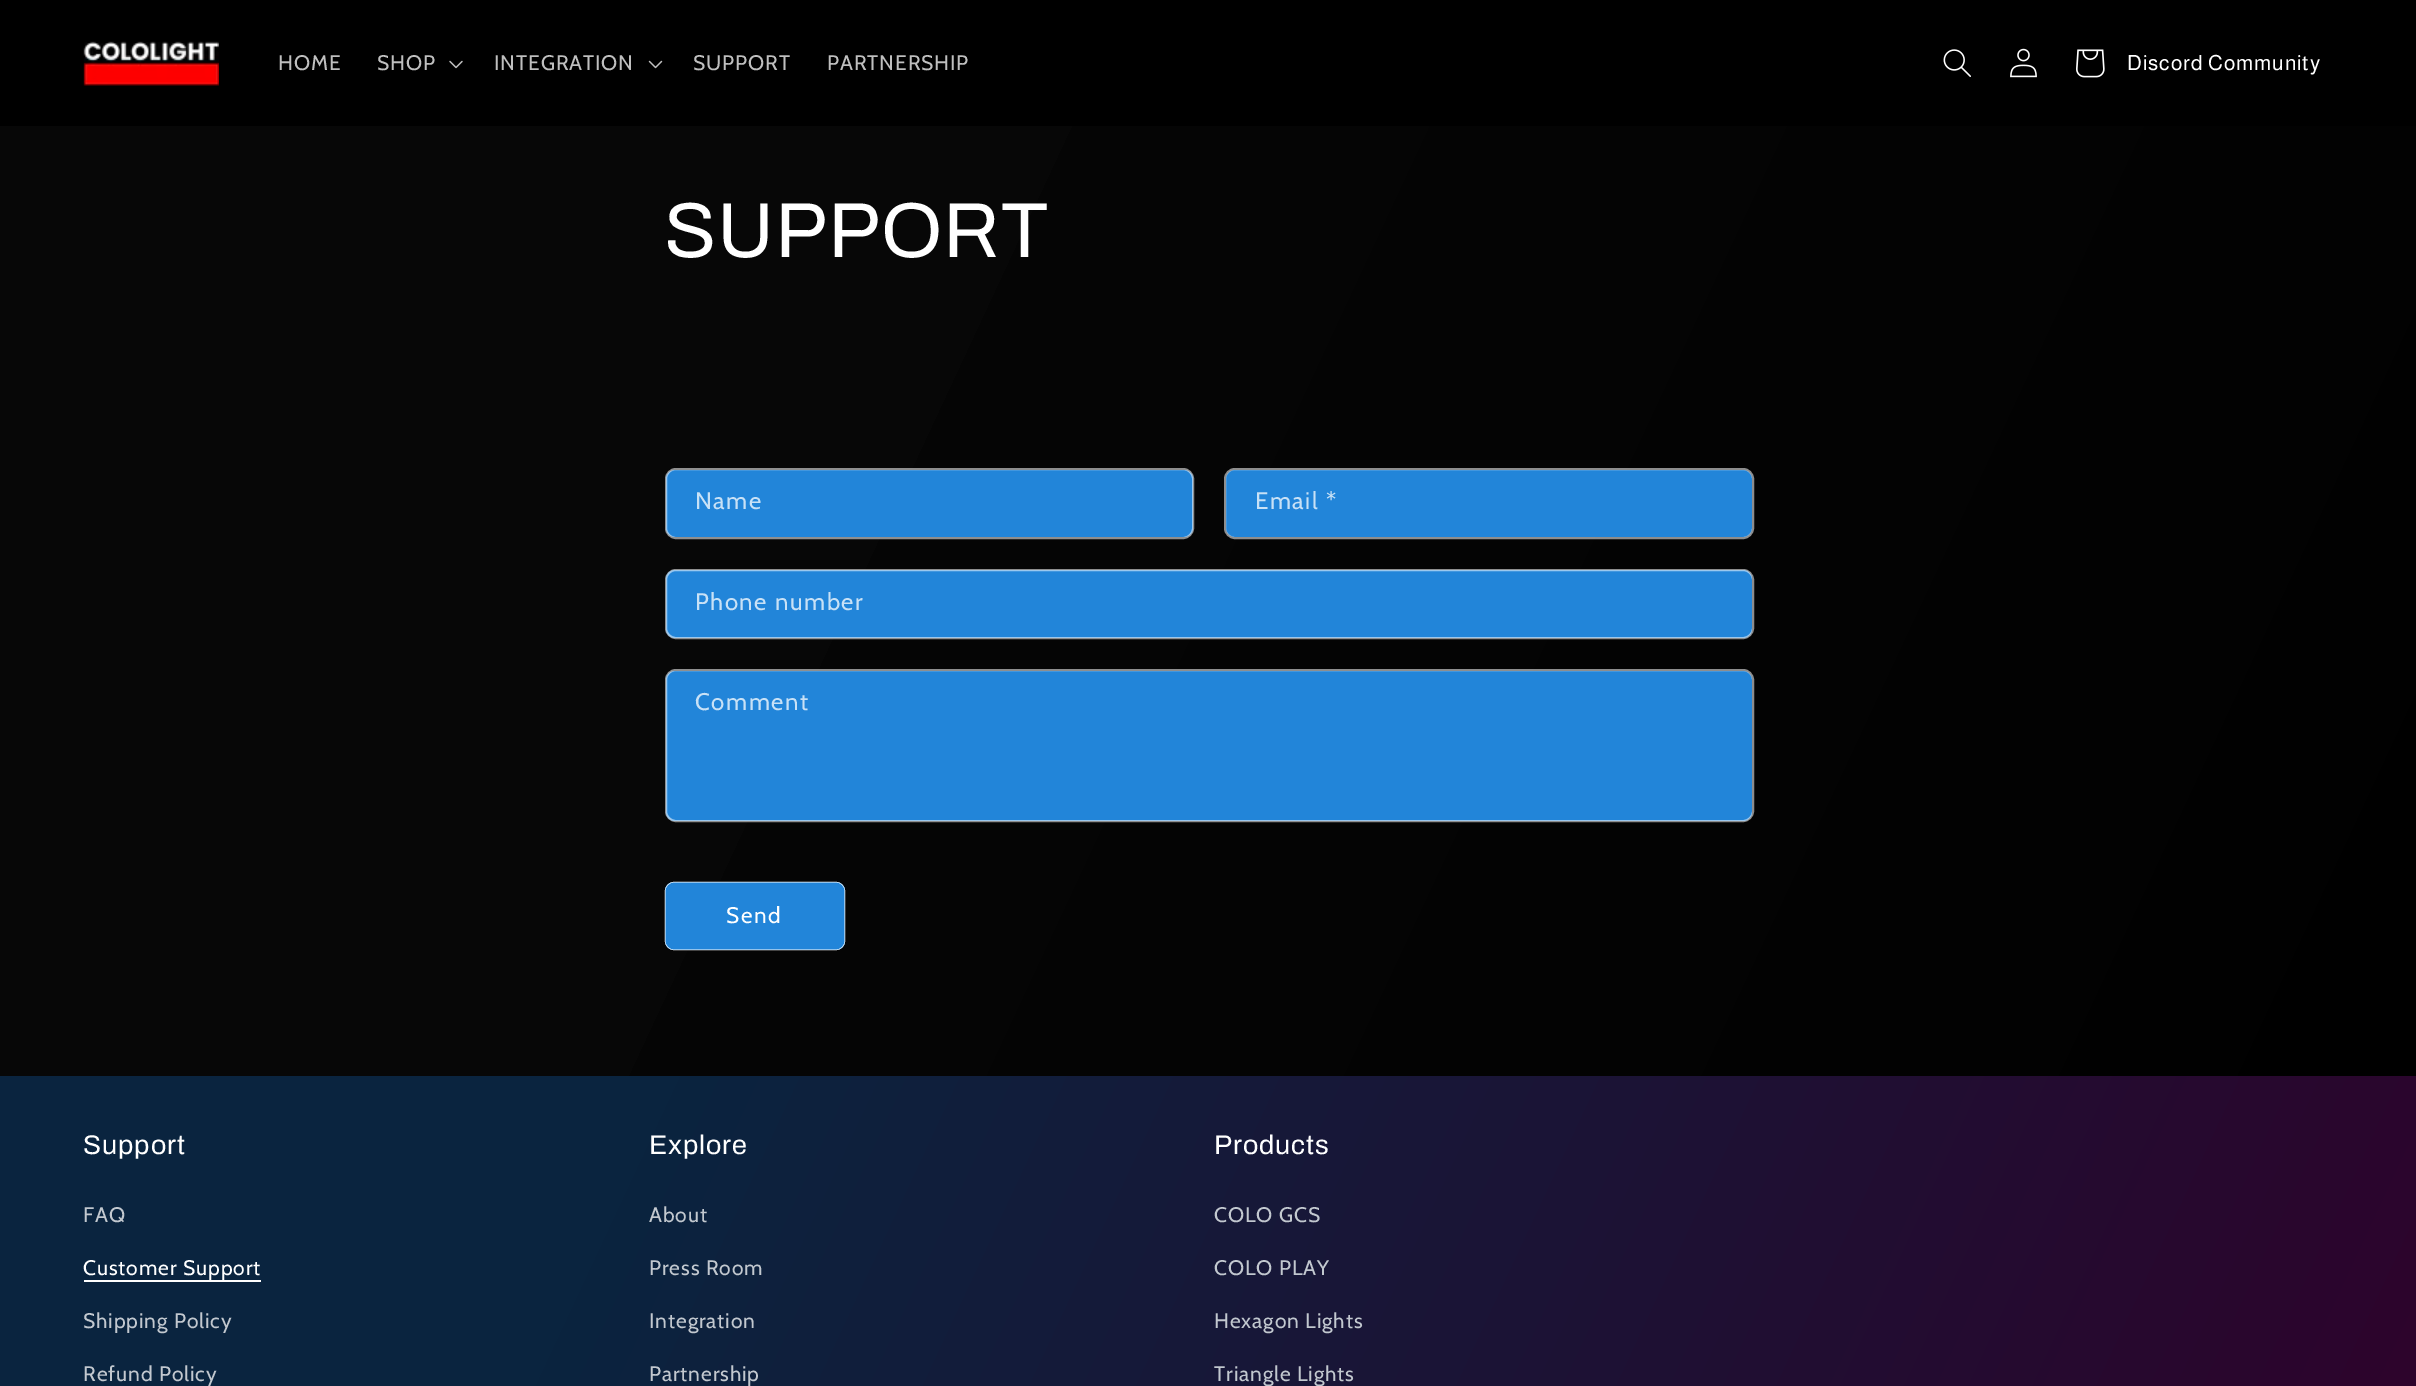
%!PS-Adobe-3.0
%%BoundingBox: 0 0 2416 1386
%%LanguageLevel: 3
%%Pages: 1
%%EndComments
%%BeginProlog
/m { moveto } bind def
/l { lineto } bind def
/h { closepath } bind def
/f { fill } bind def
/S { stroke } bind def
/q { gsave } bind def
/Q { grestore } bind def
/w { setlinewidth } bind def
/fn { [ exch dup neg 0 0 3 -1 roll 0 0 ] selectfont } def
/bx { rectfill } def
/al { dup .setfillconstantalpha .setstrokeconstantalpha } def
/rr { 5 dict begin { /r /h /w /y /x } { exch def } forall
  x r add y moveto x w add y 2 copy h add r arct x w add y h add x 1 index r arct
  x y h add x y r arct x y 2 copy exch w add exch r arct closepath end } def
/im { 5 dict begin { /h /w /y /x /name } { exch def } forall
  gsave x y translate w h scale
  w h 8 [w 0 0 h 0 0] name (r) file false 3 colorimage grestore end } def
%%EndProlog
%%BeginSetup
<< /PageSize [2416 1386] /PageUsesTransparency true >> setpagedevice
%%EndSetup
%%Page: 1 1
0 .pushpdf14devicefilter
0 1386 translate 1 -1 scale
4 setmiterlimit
1 setgray
0 0 2416 1386 bx
q 0 126 m 2416 126 l 2416 1076 l 0 1076 l h clip newpath
<< /ShadingType 2 /ColorSpace /DeviceRGB /Coords [-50 106 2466 1280] /Extend [true true] /Function << /FunctionType 3 /Domain [0 1] /Functions [<< /FunctionType 2 /Domain [0 1] /C0 [0.027 0.027 0.027] /C1 [0.027 0.027 0.027] /N 1 >> << /FunctionType 2 /Domain [0 1] /C0 [0.027 0.027 0.027] /C1 [0 0 0] /N 1 >> << /FunctionType 2 /Domain [0 1] /C0 [0 0 0] /C1 [0 0 0] /N 1 >>] /Bounds [0.31 0.99] /Encode [0 1 0 1 0 1] >> >> shfill Q
0 setgray
0 0 2416 126 bx
(image0.raw) 83 41 136 45 im
/Cabin-Regular 21 fn
0.749 setgray
278 70 m 0.9 0 (HOME) ashow
377 70 m 0.9 0 (SHOP) ashow
(image1.raw) 449 60 14 9 im
494 70 m 0.9 0 (INTEGRATION) ashow
(image2.raw) 648 60 15 9 im
693 70 m 0.9 0 (SUPPORT) ashow
827 70 m 0.9 0 (PARTNERSHIP) ashow
(image3.raw) 1943 49 28 28 im
(image4.raw) 2010 48 27 30 im
(image5.raw) 2076 49 29 29 im
/Almarai-Regular 21 fn
1 setgray
2127 70 m 0.9 0 (Discord Community) ashow
/Archivo-Regular 78 fn
664 257 m 0.9 0 (SUPPORT) ashow
0.133 0.522 0.851 setrgbcolor
666 470 527 67 9 rr f
0.55 al
1 setgray
2 w
666 469 527 69 10 rr S
/Cabin-Regular 24 fn
1 al
0.784 0.882 0.965 setrgbcolor
695 509 m 1.5 0 (Name) ashow
0.133 0.522 0.851 setrgbcolor
1226 470 526 67 9 rr f
0.55 al
1 setgray
1225 469 528 69 10 rr S
1 al
0.784 0.882 0.965 setrgbcolor
1255 509 m 1.5 0 (Email *) ashow
0.133 0.522 0.851 setrgbcolor
666 570 1086 68 9 rr f
0.55 al
1 setgray
666 570 1087 68 10 rr S
1 al
0.784 0.882 0.965 setrgbcolor
695 610 m 1.5 0 (Phone number) ashow
0.133 0.522 0.851 setrgbcolor
666 671 1086 150 9 rr f
0.55 al
1 setgray
666 670 1087 151 10 rr S
1 al
0.784 0.882 0.965 setrgbcolor
695 710 m 1.5 0 (Comment) ashow
0.133 0.522 0.851 setrgbcolor
665 882 180 68 9 rr f
0.95 al
1 setgray
0.4 w
665.2 882.2 179.6 67.6 8.8 rr S
/Cabin-Regular 22.5 fn
1 al
726 923 m 1.5 0 (Send) ashow
q 0 1076 m 2416 1076 l 2416 1386 l 0 1386 l h clip newpath
<< /ShadingType 2 /ColorSpace /DeviceRGB /Coords [-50 106 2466 1280] /Extend [true true] /Function << /FunctionType 3 /Domain [0 1] /Functions [<< /FunctionType 2 /Domain [0 1] /C0 [0.039 0.141 0.247] /C1 [0.039 0.141 0.247] /N 1 >> << /FunctionType 2 /Domain [0 1] /C0 [0.039 0.141 0.247] /C1 [0.176 0.016 0.173] /N 1 >> << /FunctionType 2 /Domain [0 1] /C0 [0.176 0.016 0.173] /C1 [0.176 0.016 0.173] /N 1 >>] /Bounds [0.38 0.99] /Encode [0 1 0 1 0 1] >> >> shfill Q
/Archivo-Regular 27 fn
83 1154 m 0.9 0 (Support) ashow
/Cabin-Regular 21 fn
0.761 0.784 0.812 setrgbcolor
83 1222 m 0.9 0 (FAQ) ashow
1 setgray
84 1280 177 2 bx
83 1275 m 0.9 0 (Customer Support) ashow
0.761 0.784 0.812 setrgbcolor
83 1328 m 0.9 0 (Shipping Policy) ashow
83 1381 m 0.9 0 (Refund Policy) ashow
/Archivo-Regular 27 fn
1 setgray
649 1154 m 0.9 0 (Explore) ashow
/Cabin-Regular 21 fn
0.761 0.784 0.812 setrgbcolor
649 1222 m 0.9 0 (About) ashow
649 1275 m 0.9 0 (Press Room) ashow
649 1328 m 0.9 0 (Integration) ashow
649 1381 m 0.9 0 (Partnership) ashow
/Archivo-Regular 27 fn
1 setgray
1214 1154 m 0.9 0 (Products) ashow
/Cabin-Regular 21 fn
0.761 0.784 0.812 setrgbcolor
1214 1222 m 0.9 0 (COLO GCS) ashow
1214 1275 m 0.9 0 (COLO PLAY) ashow
1214 1328 m 0.9 0 (Hexagon Lights) ashow
1214 1381 m 0.9 0 (Triangle Lights) ashow
.poppdf14devicefilter showpage
%%EOF
